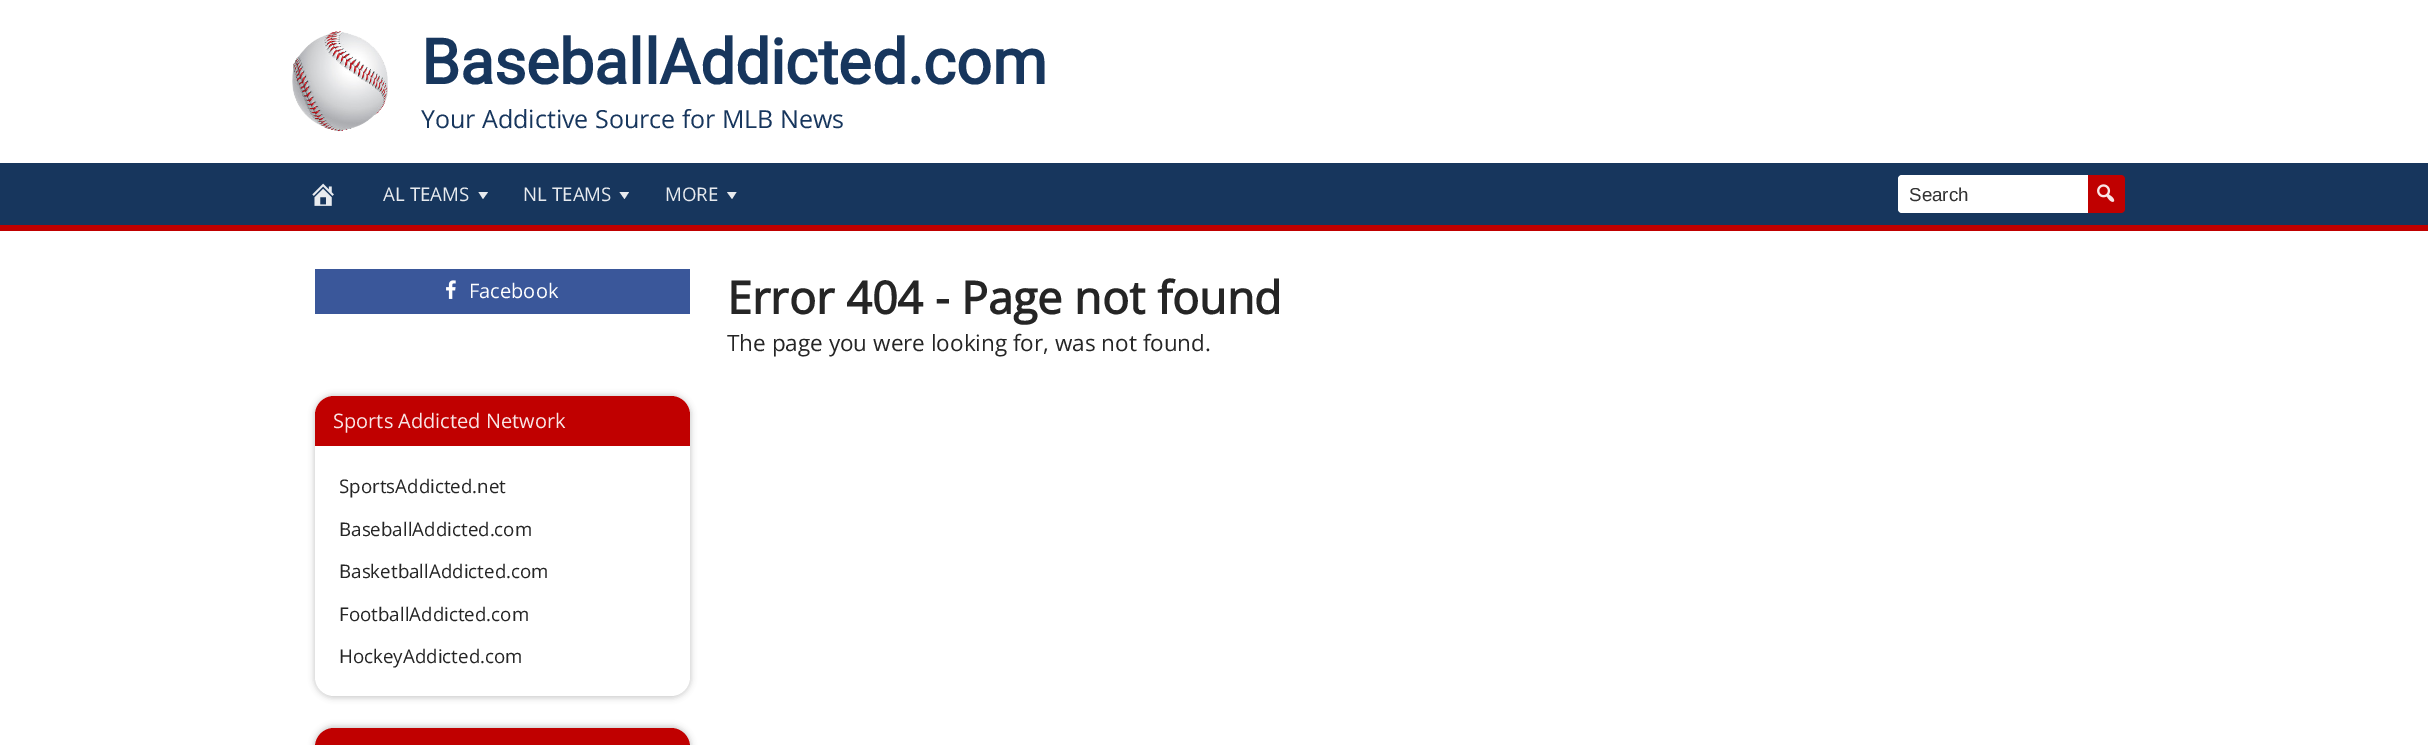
%!PS-Adobe-3.0
%%BoundingBox: 0 0 2428 745
%%LanguageLevel: 3
%%Pages: 1
%%EndComments
%%BeginProlog
/m { moveto } bind def
/l { lineto } bind def
/c { curveto } bind def
/h { closepath } bind def
/f { fill } bind def
/fn { [ exch dup neg 0 0 3 -1 roll 0 0 ] selectfont } def
/tx { moveto show } def
/bx { rectfill } def
/al { dup .setfillconstantalpha .setstrokeconstantalpha } def
/rr { 5 dict begin { /r /h /w /y /x } { exch def } forall
  x r add y moveto x w add y 2 copy h add r arct x w add y h add x 1 index r arct
  x y h add x y r arct x y 2 copy exch w add exch r arct closepath end } def
/sh { 12 dict begin { /a /b /q /h /w /y /x } { exch def } forall gsave /was 0 def
  9 -2 -9 { dup b mul 4 div /e exch def 1 sub .425 mul 2.718 exch exp 1 add a .99 .min exch div /now exch def
    1 1 now sub 1 was sub div sub al /was now def
    w h .min e 2 mul add 0 gt { x e sub y e sub w e 2 mul add h e 2 mul add
      q e add b .6 mul add w h .min 2 div e add .min 0 .max rr fill } if } for grestore end } def
/im { 5 dict begin { /h /w /y /x /name } { exch def } forall
  gsave x y translate w h scale
  w h 8 [w 0 0 h 0 0] name (r) file false 3 colorimage grestore end } def
%%EndProlog
%%BeginSetup
<< /PageSize [2428 745] /PageUsesTransparency true >> setpagedevice
%%EndSetup
%%Page: 1 1
0 .pushpdf14devicefilter
0 745 translate 1 -1 scale
4 setmiterlimit
1 setgray
0 0 2428 745 bx
(image0.raw) 292 31 96 101 im
/Roboto-Bold 62.5 fn
0.09 0.212 0.365 setrgbcolor
(BaseballAddicted.com) 421 84 tx
/OpenSans-Regular 25 fn
(Your Addictive Source for MLB News) 421 128 tx
0 163 2428 62 bx
0.753 0 0 setrgbcolor
0 225 2428 6 bx
(image1.raw) 312 183 22 23 im
/OpenSans-Regular 18.75 fn
0.91 0.922 0.937 setrgbcolor
(AL TEAMS) 383 201 tx
488 192 m 483 199 l 478.5 192 l h f
(NL TEAMS) 523 201 tx
629 192 m 624.5 199 l 619.5 192 l h f
(MORE) 665 201 tx
736.5 192 m 732 199 l 727 192 l h f
1 setgray
1898 175 225 38 4 rr f
/LiberationSans-Regular 18.75 fn
0.2 setgray
(Search) 1909 201 tx
0.753 0 0 setrgbcolor
2088 175 m 2121 175 l 2123 175 2125 177 2125 179 c 2125 209 l 2125 211 2123 213 2121 213 c 2088 213 l h f
(image2.raw) 2097 184 18 18 im
0.227 0.341 0.604 setrgbcolor
315 269 375 45 bx
(image3.raw) 446 280 10 19 im
/OpenSans-Regular 20 fn
1 setgray
(Facebook) 469 298 tx
0 setgray
314 395 377 303 20 3 0.2 sh
1 setgray
315 396 375 300 19 rr f
0.753 0 0 setrgbcolor
334 396 m 671 396 l 681.5 396 690 404.5 690 415 c 690 446 l 315 446 l 315 415 l 315 404.5 323.5 396 334 396 c h f
0.976 0.902 0.902 setrgbcolor
(Sports Addicted Network) 333 428 tx
/OpenSans-Regular 18.75 fn
0.145 setgray
(SportsAddicted.net) 339 493 tx
(BaseballAddicted.com) 339 536 tx
(BasketballAddicted.com) 339 578 tx
(FootballAddicted.com) 339 621 tx
(HockeyAddicted.com) 339 663 tx
0 setgray
314 726 377 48 20 3 0.2 sh
0.753 0 0 setrgbcolor
334 728 m 671 728 l 681.5 728 690 736.5 690 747 c 690 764 l 315 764 l 315 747 l 315 736.5 323.5 728 334 728 c h f
/OpenSans-Bold 45 fn
0.145 setgray
(Error 404 - Page not found) 727 314 tx
/OpenSans-Regular 22.5 fn
(The page you were looking for, was not found.) 727 351 tx
.poppdf14devicefilter showpage
%%EOF
